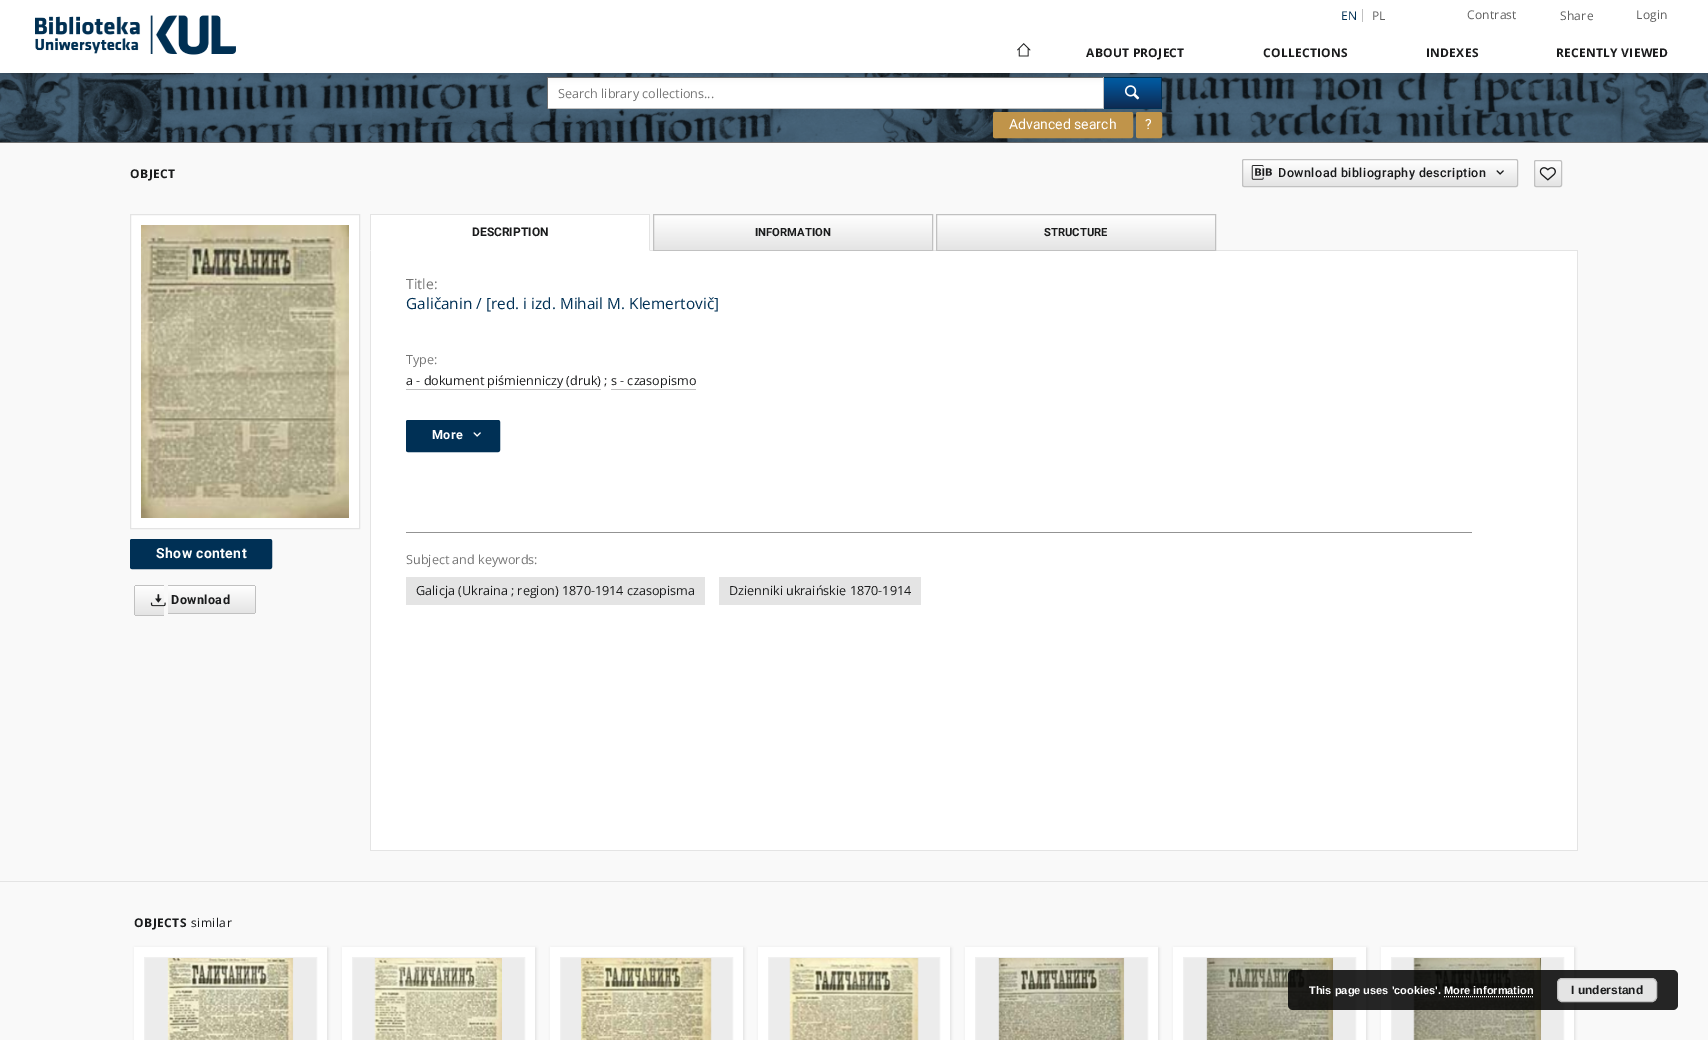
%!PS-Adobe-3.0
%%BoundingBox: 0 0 1708 1040
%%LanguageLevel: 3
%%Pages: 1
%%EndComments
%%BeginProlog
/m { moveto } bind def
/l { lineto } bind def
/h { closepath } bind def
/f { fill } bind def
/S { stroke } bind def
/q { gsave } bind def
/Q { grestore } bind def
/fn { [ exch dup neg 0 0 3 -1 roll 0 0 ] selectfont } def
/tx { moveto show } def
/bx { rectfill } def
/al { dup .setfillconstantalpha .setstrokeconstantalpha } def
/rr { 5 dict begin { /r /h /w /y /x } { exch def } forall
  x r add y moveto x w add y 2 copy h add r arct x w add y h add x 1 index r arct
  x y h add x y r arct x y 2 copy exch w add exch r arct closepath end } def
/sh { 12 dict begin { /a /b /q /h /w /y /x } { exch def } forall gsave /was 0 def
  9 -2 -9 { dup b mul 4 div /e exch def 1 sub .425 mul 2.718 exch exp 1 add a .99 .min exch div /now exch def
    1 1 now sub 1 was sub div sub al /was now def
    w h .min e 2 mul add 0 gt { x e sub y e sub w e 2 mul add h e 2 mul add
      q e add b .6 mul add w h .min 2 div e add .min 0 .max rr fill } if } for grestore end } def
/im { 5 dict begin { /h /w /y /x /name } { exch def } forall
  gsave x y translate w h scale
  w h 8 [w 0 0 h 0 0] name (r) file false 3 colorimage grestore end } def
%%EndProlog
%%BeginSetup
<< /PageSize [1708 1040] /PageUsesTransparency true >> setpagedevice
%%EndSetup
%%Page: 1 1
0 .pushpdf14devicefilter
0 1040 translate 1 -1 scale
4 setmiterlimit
0.976 setgray
0 0 1708 1040 bx
(image2.raw) 0 73 1708 69 im
1 setgray
548 78 555 30 bx
0.439 setgray
547 77 557 1 bx
0.757 setgray
1103 77 1 32 bx
547 108 557 1 bx
0.439 setgray
547 77 1 32 bx
q 1104 78 m 1161 78 l 1161 108 l 1104 108 l h clip newpath
<< /ShadingType 2 /ColorSpace /DeviceRGB /Coords [1133 78 1133 108] /Extend [true true] /Function << /FunctionType 2 /Domain [0 1] /C0 [0 0.361 0.655] /C1 [0.055 0.169 0.322] /N 1 >> >> shfill Q
0 0.188 0.333 setrgbcolor
1104 77 58 1 bx
1161 77 1 32 bx
(image3.raw) 1124 85 16 15 im
0 setgray
0 1 1708 73 0 5 0.08 sh
0 4 1708 73 0 2.5 0.06 sh
1 3 1706 71 0 2 0.06 sh
1 setgray
0 0 1708 73 bx
0.757 setgray
1362 9 1 13 bx
/OpenSans-Regular 12 fn
0 0.188 0.333 setrgbcolor
1341 20 m 0.25 0 (EN) ashow
0.376 setgray
1372 20 m 0.25 0 (PL) ashow
1467 19 m 0.25 0 (Contrast) ashow
1560 20 m 0.25 0 (Share) ashow
1636 19 m 0.25 0 (Login) ashow
(image0.raw) 35 15 201 40 im
(image1.raw) 1017 43 14 14 im
/OpenSans-Bold 12 fn
0.102 0.106 0.11 setrgbcolor
1086 57 m 0.25 0 (ABOUT PROJECT) ashow
1263 57 m 0.25 0 (COLLECTIONS) ashow
1426 57 m 0.25 0 (INDEXES) ashow
1556 57 m 0.25 0 (RECENTLY VIEWED) ashow
0.439 setgray
0 142 1708 1 bx
/OpenSans-Regular 12.6 fn
0.459 setgray
(Search library collections...) 558 98 tx
0 0.188 0.333 setrgbcolor
1104 108 58 1 bx
0.753 0.58 0.29 setrgbcolor
993.5 112.5 139 25 1.5 rr q f Q
S
/Roboto-Regular 14 fn
1 setgray
(Advanced search) 1009 129 tx
0.753 0.58 0.29 setrgbcolor
1136.5 112.5 25 25 1.5 rr q f Q
S
1 setgray
(?) 1145 129 tx
/OpenSans-Bold 12 fn
0.102 0.106 0.11 setrgbcolor
130 178 m 0.5 0 (OBJECT) ashow
q
1242 159 276 28 2 rr clip newpath
q 1242 160 m 1518 160 l 1518 186 l 1242 186 l h clip newpath
<< /ShadingType 2 /ColorSpace /DeviceRGB /Coords [1380 160 1380 186] /Extend [true true] /Function << /FunctionType 2 /Domain [0 1] /C0 [1 1 1] /C1 [0.894 0.894 0.894] /N 1 >> >> shfill Q
Q
0.757 setgray
1242.5 159.5 275 27 1.5 rr S
(image4.raw) 1251 165 21 15 im
/Roboto-Medium 12.6 fn
0.102 0.106 0.11 setrgbcolor
1278 177 m 0.4 0 (Download bibliography description) ashow
(image5.raw) 1496 170 8 5 im
q
1534 160 28 27 2 rr clip newpath
q 1534 161 m 1562 161 l 1562 186 l 1534 186 l h clip newpath
<< /ShadingType 2 /ColorSpace /DeviceRGB /Coords [1548 161 1548 186] /Extend [true true] /Function << /FunctionType 2 /Domain [0 1] /C0 [1 1 1] /C1 [0.894 0.894 0.894] /N 1 >> >> shfill Q
Q
0.757 setgray
1534.5 160.5 27 26 1.5 rr S
(image6.raw) 1539 167 17 14 im
1 setgray
130.5 214.5 m 359.5 214.5 l 359.5 528.5 l 130.5 528.5 l h q f Q
0.894 setgray
S
(image7.raw) 141 225 208 293 im
0 0.188 0.333 setrgbcolor
130.5 539.5 141 29 1.5 rr q f Q
S
/Roboto-Bold 14 fn
1 setgray
156 558 m 0.4 0 (Show content) ashow
q 135 586 m 164 586 l 164 615 l 135 615 l h clip newpath
<< /ShadingType 2 /ColorSpace /DeviceRGB /Coords [150 586 150 615] /Extend [true true] /Function << /FunctionType 2 /Domain [0 1] /C0 [1 1 1] /C1 [0.894 0.894 0.894] /N 1 >> >> shfill Q
0.757 setgray
135 585 29 1 bx
135 615 29 1 bx
134 586 1 29 bx
q 168 586 m 255 586 l 255 613 l 168 613 l h clip newpath
<< /ShadingType 2 /ColorSpace /DeviceRGB /Coords [212 586 212 613] /Extend [true true] /Function << /FunctionType 2 /Domain [0 1] /C0 [1 1 1] /C1 [0.894 0.894 0.894] /N 1 >> >> shfill Q
168 585 87 1 bx
255 586 1 27 bx
168 613 87 1 bx
(image8.raw) 150 594 16 13 im
/Roboto-Bold 12.6 fn
0.102 0.106 0.11 setrgbcolor
171 604 m 0.4 0 (Download) ashow
0.894 setgray
650 250 928 1 bx
1 setgray
370 215 280 36 bx
0.894 setgray
370 214 280 1 bx
650 214 m 650 251 l 649 250 l 649 215 l h f
370 251 m 370 214 l 371 215 l 371 250 l h f
/Roboto-Bold 12 fn
0.102 0.106 0.11 setrgbcolor
(DESCRIPTION) 472 236 tx
q 654 215 m 932 215 l 932 250 l 654 250 l h clip newpath
<< /ShadingType 2 /ColorSpace /DeviceRGB /Coords [793 215 793 250] /Extend [true true] /Function << /FunctionType 2 /Domain [0 1] /C0 [1 1 1] /C1 [0.894 0.894 0.894] /N 1 >> >> shfill Q
0.757 setgray
653.5 214.5 279 36 rectstroke
/Roboto-Bold 11.25 fn
0.102 0.106 0.11 setrgbcolor
(INFORMATION) 755 236 tx
q 937 215 m 1215 215 l 1215 250 l 937 250 l h clip newpath
<< /ShadingType 2 /ColorSpace /DeviceRGB /Coords [1076 215 1076 250] /Extend [true true] /Function << /FunctionType 2 /Domain [0 1] /C0 [1 1 1] /C1 [0.894 0.894 0.894] /N 1 >> >> shfill Q
0.757 setgray
936.5 214.5 279 36 rectstroke
0.102 0.106 0.11 setrgbcolor
(STRUCTURE) 1044 236 tx
1 setgray
371 251 1206 599 bx
0.894 setgray
1577 251 1 600 bx
370 850 1208 1 bx
370 251 1 600 bx
/OpenSans-Regular 14 fn
0.459 setgray
(Title:) 406 289 tx
/OpenSans-Regular 15.4 fn
0 0.188 0.333 setrgbcolor
(Galičanin / [red. i izd. Mihail M. Klemertovič]) 406 309 tx
/OpenSans-Regular 12.6 fn
0.459 setgray
(Type:) 406 364 tx
0.102 0.106 0.11 setrgbcolor
(a - dokument piśmienniczy \(druk\) ; s - czasopismo) 406 385 tx
0.757 setgray
406 389 195 1 bx
611 389 85 1 bx
0 0.188 0.333 setrgbcolor
406.5 420.5 93 31 1.5 rr q f Q
S
/Roboto-Bold 12.6 fn
1 setgray
432 439 m 0.4 0 (More) ashow
(image9.raw) 473 432 8 5 im
0.576 setgray
406 532 1066 1 bx
/OpenSans-Regular 12.6 fn
0.459 setgray
(Subject and keywords:) 406 564 tx
0.894 setgray
406 577 299 28 bx
0.102 0.106 0.11 setrgbcolor
(Galicja \(Ukraina ; region\) 1870-1914 czasopisma) 416 595 tx
0.894 setgray
719 577 202 28 bx
0.102 0.106 0.11 setrgbcolor
(Dzienniki ukraińskie 1870-1914) 729 595 tx
0.894 setgray
0 881 1708 1 bx
/OpenSans-Bold 12 fn
0.102 0.106 0.11 setrgbcolor
134 927 m 0.5 0 (OBJECTS) ashow
/OpenSans-Regular 12 fn
191 927 m 0.5 0 (similar) ashow
0.871 setgray
135 948 193 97 0 1.5 1 sh
1 setgray
134 947 193 93 bx
0.925 setgray
144.5 957.5 m 316.5 957.5 l 316.5 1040.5 l 144.5 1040.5 l h q f Q
0.945 setgray
S
(image10.raw) 167 958 127 82 im
0.871 setgray
343 948 193 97 0 1.5 1 sh
1 setgray
342 947 193 93 bx
0.925 setgray
352.5 957.5 m 524.5 957.5 l 524.5 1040.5 l 352.5 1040.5 l h q f Q
0.945 setgray
S
(image11.raw) 374 958 128 82 im
0.871 setgray
551 948 193 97 0 1.5 1 sh
1 setgray
550 947 193 93 bx
0.925 setgray
560.5 957.5 m 732.5 957.5 l 732.5 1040.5 l 560.5 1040.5 l h q f Q
0.945 setgray
S
(image12.raw) 580 958 132 82 im
0.871 setgray
759 948 192 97 0 1.5 1 sh
1 setgray
758 947 192 93 bx
0.925 setgray
768.5 957.5 m 939.5 957.5 l 939.5 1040.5 l 768.5 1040.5 l h q f Q
0.945 setgray
S
(image13.raw) 789 958 130 82 im
0.871 setgray
966 948 193 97 0 1.5 1 sh
1 setgray
965 947 193 93 bx
0.925 setgray
975.5 957.5 m 1147.5 957.5 l 1147.5 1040.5 l 975.5 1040.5 l h q f Q
0.945 setgray
S
(image14.raw) 998 958 127 82 im
0.871 setgray
1174 948 193 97 0 1.5 1 sh
1 setgray
1173 947 193 93 bx
0.925 setgray
1183.5 957.5 m 1355.5 957.5 l 1355.5 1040.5 l 1183.5 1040.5 l h q f Q
0.945 setgray
S
(image15.raw) 1206 958 128 82 im
0.871 setgray
1382 948 193 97 0 1.5 1 sh
1 setgray
1381 947 193 93 bx
0.925 setgray
1391.5 957.5 m 1563.5 957.5 l 1563.5 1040.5 l 1391.5 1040.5 l h q f Q
0.945 setgray
S
(image16.raw) 1413 958 129 82 im
0.85 al
0 setgray
1288 970 390 40 5 rr f
/LiberationSans-Bold 11 fn
1 al
1 setgray
(This page uses 'cookies'. More information) 1309 994 tx
0.894 setgray
1557.5 978.5 99 23 4.5 rr q f Q
0.757 setgray
S
/LiberationSans-Bold 12 fn
0.102 0.106 0.11 setrgbcolor
(I understand) 1571 994 tx
1 setgray
[1 1] 0 setdash
1444 996.5 m 1534 996.5 l S
.poppdf14devicefilter showpage
%%EOF
